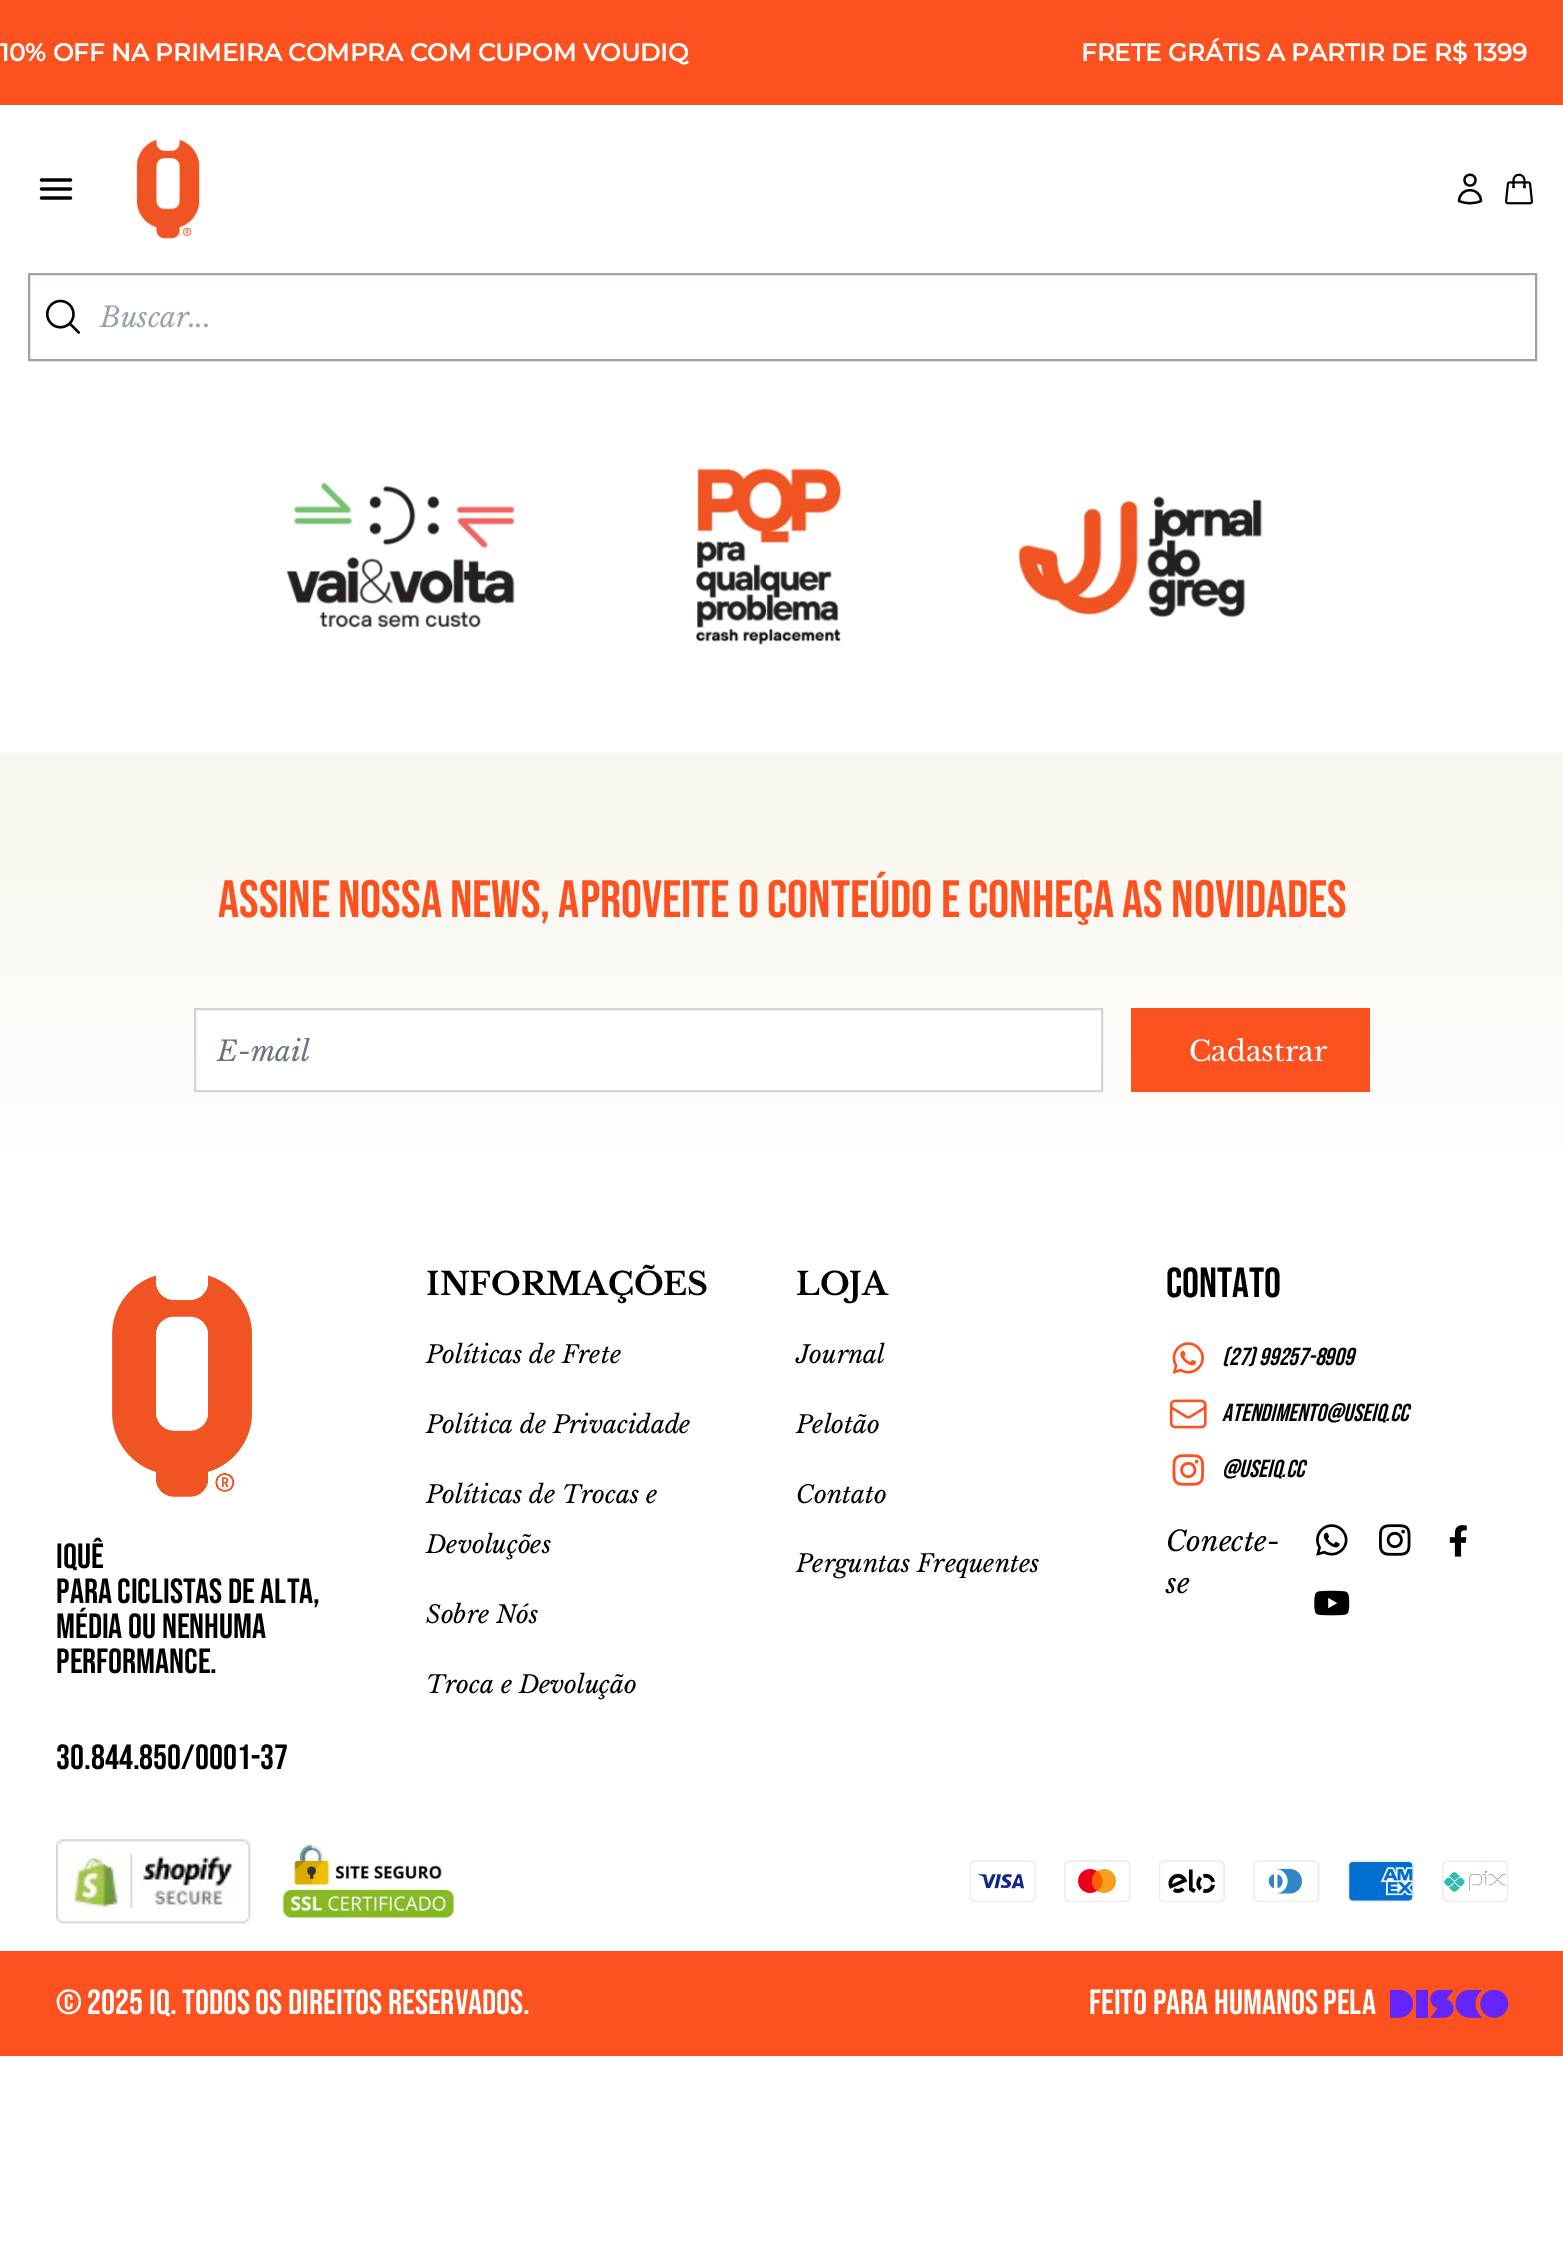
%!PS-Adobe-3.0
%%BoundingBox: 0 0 1563 2246
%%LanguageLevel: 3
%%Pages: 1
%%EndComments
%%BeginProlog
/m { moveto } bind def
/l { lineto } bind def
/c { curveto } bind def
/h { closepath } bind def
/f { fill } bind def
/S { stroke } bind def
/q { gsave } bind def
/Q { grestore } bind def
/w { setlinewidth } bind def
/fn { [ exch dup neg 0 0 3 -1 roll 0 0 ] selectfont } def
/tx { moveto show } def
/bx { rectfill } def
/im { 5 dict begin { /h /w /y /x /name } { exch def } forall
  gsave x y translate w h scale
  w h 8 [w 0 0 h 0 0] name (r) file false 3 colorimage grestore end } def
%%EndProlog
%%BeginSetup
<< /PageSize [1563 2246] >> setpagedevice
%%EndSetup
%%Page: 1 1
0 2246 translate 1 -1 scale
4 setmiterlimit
1 setgray
0 0 1563 2246 bx
0.992 0.322 0.122 setrgbcolor
0 0 1563 105 bx
/Montserrat-Bold 24.5 fn
1 setgray
(10% OFF NA PRIMEIRA COMPRA COM CUPOM VOUDIQ) 0 61 tx
(FRETE GRÁTIS A PARTIR DE R$ 1399) 1081 61 tx
0 setgray
3.2 w
1 setlinecap
1 setlinejoin
41.5 180 m 70.5 180 l 41.5 189 m 70.5 189 l 41.5 198 m 70.5 198 l S
(image0.raw) 136 139 64 100 im
2.2 w
1475.5 180 m 1475.5 187.5 1464.5 187.5 1464.5 180 c 1464.5 173 1475.5 173 1475.5 180 c h 1459 201 m 1459.5 186.5 1480.5 186.5 1481 201 c 1474 204 1466 204 1459 201 c h S
(image1.raw) 1505 173 28 32 im
0.612 0.639 0.686 setrgbcolor
2 w
0 setlinecap
0 setlinejoin
29 274 1507 86 rectstroke
(image2.raw) 45 299 35 35 im
/LibreBaskerville-Italic 28 fn
(Buscar...) 100 327 tx
(image3.raw) 286 482 229 146 im
(image4.raw) 696 468 146 177 im
(image5.raw) 1018 496 245 122 im
q 0 753 m 1563 753 l 1563 1146 l 0 1146 l h clip newpath
<< /ShadingType 2 /ColorSpace /DeviceRGB /Coords [782 752 782 1204] /Extend [true true] /Function << /FunctionType 3 /Domain [0 1] /Functions [<< /FunctionType 2 /Domain [0 1] /C0 [0.973 0.961 0.925] /C1 [1 1 0.996] /N 1 >> << /FunctionType 2 /Domain [0 1] /C0 [1 1 0.996] /C1 [1 1 0.996] /N 1 >>] /Bounds [0.95] /Encode [0 1 0 1] >> >> shfill Q
/BebasNeue-Regular 52.5 fn
0.992 0.322 0.122 setrgbcolor
(ASSINE NOSSA NEWS, APROVEITE O CONTEÚDO E CONHEÇA AS NOVIDADES) 218 917 tx
1 setgray
195 1009 m 1102 1009 l 1102 1091 l 195 1091 l h q f Q
0.82 0.835 0.859 setrgbcolor
S
/LibreBaskerville-Italic 28 fn
0.42 0.447 0.502 setrgbcolor
(E-mail) 217 1061 tx
0.992 0.322 0.122 setrgbcolor
1131 1008 239 84 bx
/LibreBaskerville-Regular 28 fn
1 setgray
(Cadastrar) 1189 1061 tx
/LibreBaskerville-Bold 31.5 fn
0 setgray
(INFORMAÇÕES) 426 1295 tx
/LibreBaskerville-Italic 24.5 fn
(Políticas de Frete) 426 1363 tx
(Política de Privacidade) 426 1433 tx
(Políticas de Trocas e) 426 1503 tx
(Devoluções) 426 1553 tx
(Sobre Nós) 426 1623 tx
(Troca e Devolução) 426 1693 tx
/LibreBaskerville-Bold 31.5 fn
(LOJA) 796 1295 tx
/LibreBaskerville-Italic 24.5 fn
(Journal) 796 1363 tx
(Pelotão) 796 1433 tx
(Contato) 796 1503 tx
(Perguntas Frequentes) 796 1572 tx
/BebasNeue-Regular 42 fn
(CONTATO) 1166 1297 tx
(image6.raw) 1172 1342 32 32 im
/BebasNeue-Italic 24.5 fn
(\(27\) 99257-8909) 1222 1365 tx
(image7.raw) 1169 1399 38 30 im
(atendimento@useiq.cc) 1222 1421 tx
(image8.raw) 1172 1454 32 32 im
(@useiq.cc) 1222 1477 tx
/LibreBaskerville-Italic 28 fn
(Conecte-) 1166 1551 tx
(image9.raw) 1316 1524 32 32 im
(image10.raw) 1379 1524 32 32 im
(image11.raw) 1449 1525 18 32 im
(image12.raw) 1314 1590 36 26 im
(se) 1166 1593 tx
(image13.raw) 112 1275 140 222 im
/BebasNeue-Regular 35 fn
(iQuê) 56 1568 tx
(Para ciclistas de alta,) 56 1603 tx
(média ou nenhuma) 56 1638 tx
(performance.) 56 1673 tx
(30.844.850/0001-37) 56 1769 tx
(image14.raw) 56 1839 195 85 im
(image15.raw) 281 1841 174 78 im
(image16.raw) 970 1860 66 42 im
(image17.raw) 1064 1860 67 42 im
(image18.raw) 1159 1860 66 42 im
(image19.raw) 1253 1860 67 42 im
(image20.raw) 1348 1860 66 42 im
(image21.raw) 1442 1860 66 42 im
0.992 0.322 0.122 setrgbcolor
0 1951 1563 105 bx
1 setgray
(© 2025 IQ. TODOS OS DIREITOS RESERVADOS.) 56 2014 tx
(Feito para humanos pela) 1089 2014 tx
(image22.raw) 1390 1990 119 28 im
showpage
%%EOF
